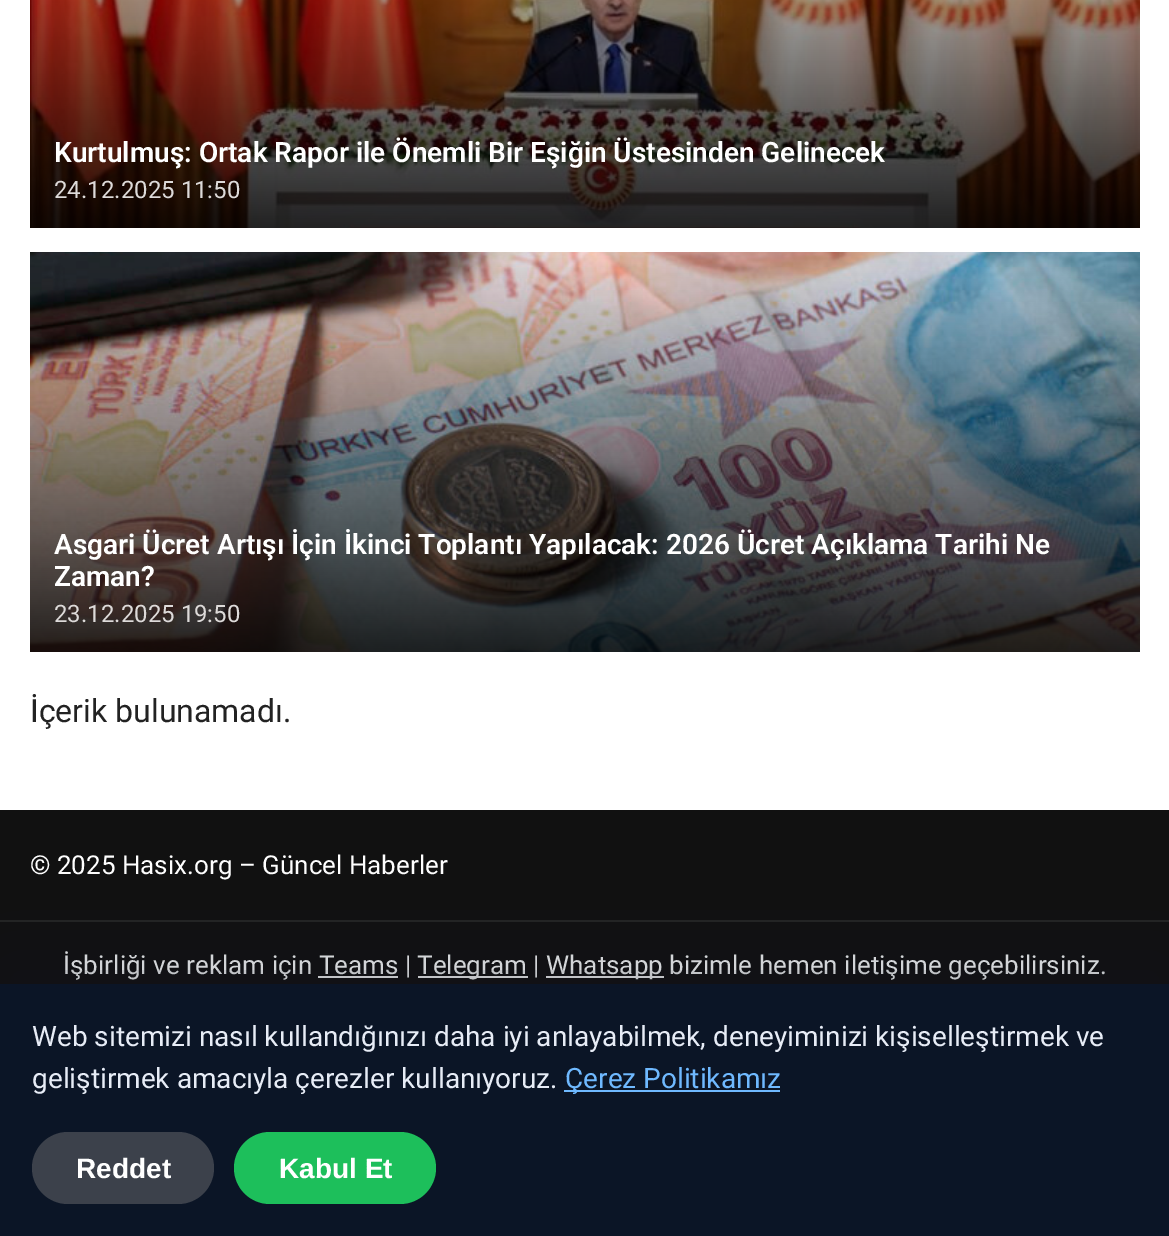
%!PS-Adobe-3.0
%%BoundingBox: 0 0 1169 1236
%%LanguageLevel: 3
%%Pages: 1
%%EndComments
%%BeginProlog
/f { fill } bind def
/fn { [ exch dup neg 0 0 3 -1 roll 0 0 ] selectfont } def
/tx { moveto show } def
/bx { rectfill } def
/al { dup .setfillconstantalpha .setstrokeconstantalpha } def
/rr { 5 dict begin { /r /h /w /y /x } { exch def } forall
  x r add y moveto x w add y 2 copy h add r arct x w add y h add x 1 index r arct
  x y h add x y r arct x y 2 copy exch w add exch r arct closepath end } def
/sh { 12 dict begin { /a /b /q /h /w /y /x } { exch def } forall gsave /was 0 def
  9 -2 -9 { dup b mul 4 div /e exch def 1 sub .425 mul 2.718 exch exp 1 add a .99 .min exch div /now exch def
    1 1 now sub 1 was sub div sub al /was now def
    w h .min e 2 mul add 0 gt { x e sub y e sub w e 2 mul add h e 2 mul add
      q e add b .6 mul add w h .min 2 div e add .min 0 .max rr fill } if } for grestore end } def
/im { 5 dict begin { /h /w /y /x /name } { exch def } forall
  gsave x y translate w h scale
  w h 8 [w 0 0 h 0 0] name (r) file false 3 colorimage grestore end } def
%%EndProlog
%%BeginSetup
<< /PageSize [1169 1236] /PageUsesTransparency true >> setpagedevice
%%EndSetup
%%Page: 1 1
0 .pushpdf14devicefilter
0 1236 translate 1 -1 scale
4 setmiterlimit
1 setgray
0 0 1169 1236 bx
(image0.raw) 30 0 1110 228 im
/Roboto-SemiBold 28 fn
(Kurtulmuş: Ortak Rapor ile Önemli Bir Eşiğin Üstesinden Gelinecek) 54 162 tx
/Roboto-Regular 24 fn
0.867 0.855 0.851 setrgbcolor
(24.12.2025 11:50) 54 198 tx
(image1.raw) 30 252 1110 400 im
/Roboto-SemiBold 28 fn
1 setgray
(Asgari Ücret Artışı İçin İkinci Toplantı Yapılacak: 2026 Ücret Açıklama Tarihi Ne) 54 554 tx
(Zaman?) 54 586 tx
/Roboto-Regular 24 fn
0.867 0.855 0.851 setrgbcolor
(23.12.2025 19:50) 54 622 tx
/Roboto-Regular 32 fn
0.133 setgray
(İçerik bulunamadı.) 30 722 tx
0.067 setgray
0 810 1169 110 bx
/Roboto-Regular 26 fn
1 setgray
(© 2025 Hasix.org – Güncel Haberler) 30 874 tx
0.067 setgray
0 922 1169 62 bx
0.141 setgray
0 920 1169 2 bx
1 setgray
(İşbirliği ve reklam için Teams |) 63 974 tx
418 976 110 2 bx
(Telegram |) 417 974 tx
546 976 118 2 bx
(Whatsapp bizimle hemen iletişime geçebilirsiniz.) 546 974 tx
318 976 80 2 bx
0.047 0.082 0.133 setrgbcolor
0 960 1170 252 0 40 0.35 sh
0.043 0.082 0.149 setrgbcolor
0 984 1169 252 bx
/Roboto-Regular 28 fn
0.906 0.925 0.965 setrgbcolor
(Web sitemizi nasıl kullandığınızı daha iyi anlayabilmek, deneyiminizi kişiselleştirmek ve) 32 1046 tx
(geliştirmek amacıyla çerezler kullanıyoruz.) 32 1088 tx
0.435 0.725 1 setrgbcolor
564 1090 216 2 bx
(Çerez Politikamız) 565 1088 tx
0.235 0.255 0.294 setrgbcolor
32 1132 182 72 36 rr f
/LiberationSans-Bold 28 fn
1 setgray
(Reddet) 76 1178 tx
0.114 0.749 0.357 setrgbcolor
234 1132 202 72 36 rr f
1 setgray
(Kabul Et) 279 1178 tx
.poppdf14devicefilter showpage
%%EOF
